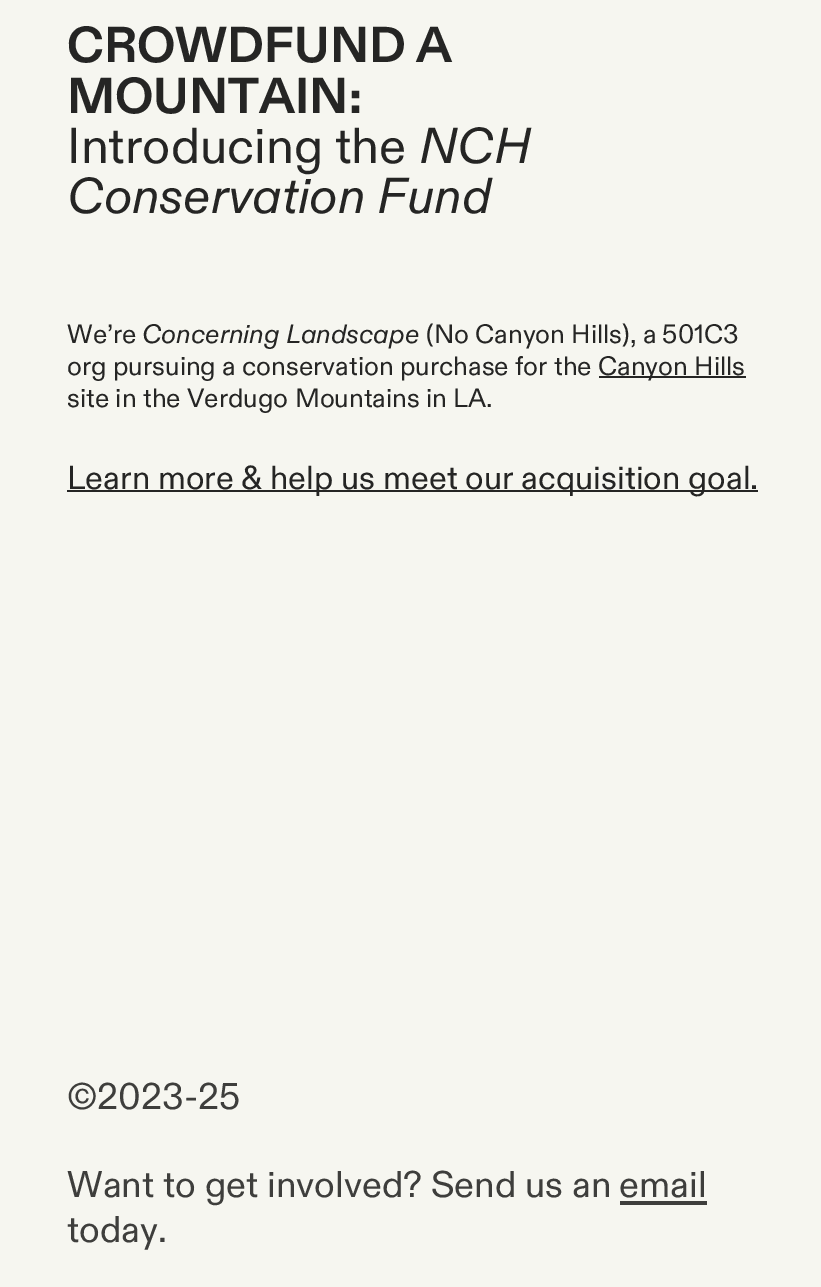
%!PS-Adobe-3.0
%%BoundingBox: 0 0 821 1287
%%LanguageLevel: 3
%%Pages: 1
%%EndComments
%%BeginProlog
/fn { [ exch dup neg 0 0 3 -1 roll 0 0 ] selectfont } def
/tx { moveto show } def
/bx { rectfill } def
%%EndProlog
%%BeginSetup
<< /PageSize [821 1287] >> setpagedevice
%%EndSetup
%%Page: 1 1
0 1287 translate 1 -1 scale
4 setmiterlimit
0.965 0.965 0.941 setrgbcolor
0 0 821 1287 bx
/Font-Bold 50.25 fn
0.145 0.145 0.141 setrgbcolor
(CROWDFUND A) 67 62 tx
(MOUNTAIN:) 67 113 tx
/Font-Regular 50.25 fn
(Introducing the) 67 163 tx
/Font-Italic 50.25 fn
(NCH) 419 163 tx
(Conservation Fund) 67 213 tx
/Font-Regular 26.6 fn
(We’re) 67 343 tx
/Font-Italic 26.6 fn
(Concerning Landscape) 142 343 tx
/Font-Regular 26.6 fn
(\(No Canyon Hills\), a 501C3) 426 343 tx
(org pursuing a conservation purchase for the) 67 375 tx
599 376 147 2 bx
(Canyon Hills) 598 375 tx
(site in the Verdugo Mountains in LA.) 67 407 tx
67 490 691 2 bx
/Font-Regular 33.1 fn
(Learn more & help us meet our acquisition goal.) 67 489 tx
/Font-Regular 37 fn
0.243 0.243 0.235 setrgbcolor
(©2023-25) 67 1109 tx
(Want to get involved? Send us an) 67 1197 tx
(email) 619 1197 tx
620 1201 87 4 bx
(today.) 67 1242 tx
showpage
%%EOF
